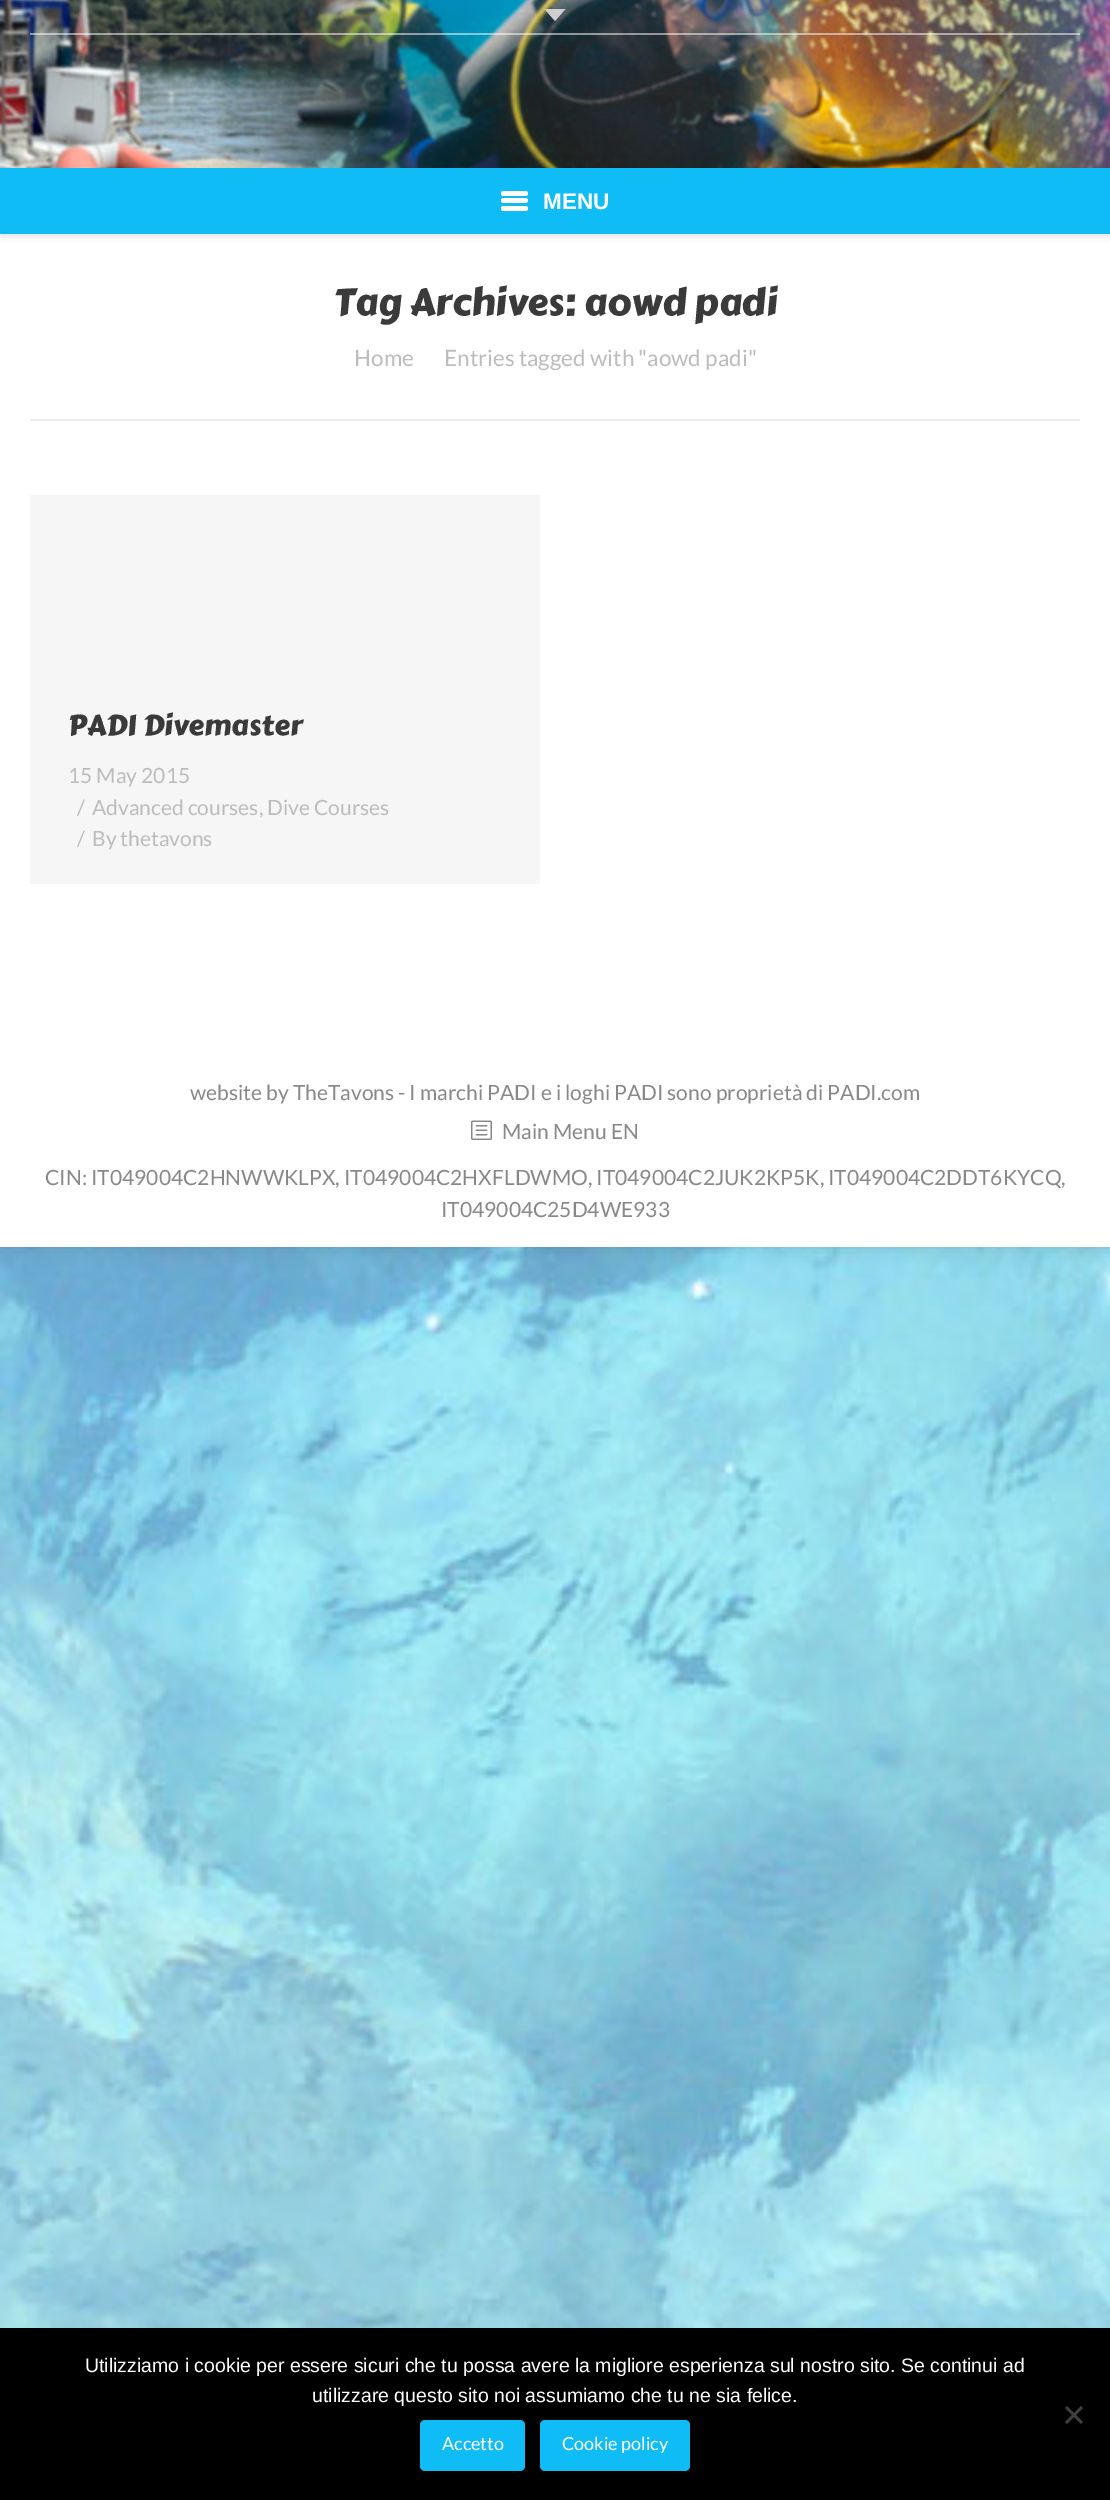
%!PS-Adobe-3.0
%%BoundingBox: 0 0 1110 2500
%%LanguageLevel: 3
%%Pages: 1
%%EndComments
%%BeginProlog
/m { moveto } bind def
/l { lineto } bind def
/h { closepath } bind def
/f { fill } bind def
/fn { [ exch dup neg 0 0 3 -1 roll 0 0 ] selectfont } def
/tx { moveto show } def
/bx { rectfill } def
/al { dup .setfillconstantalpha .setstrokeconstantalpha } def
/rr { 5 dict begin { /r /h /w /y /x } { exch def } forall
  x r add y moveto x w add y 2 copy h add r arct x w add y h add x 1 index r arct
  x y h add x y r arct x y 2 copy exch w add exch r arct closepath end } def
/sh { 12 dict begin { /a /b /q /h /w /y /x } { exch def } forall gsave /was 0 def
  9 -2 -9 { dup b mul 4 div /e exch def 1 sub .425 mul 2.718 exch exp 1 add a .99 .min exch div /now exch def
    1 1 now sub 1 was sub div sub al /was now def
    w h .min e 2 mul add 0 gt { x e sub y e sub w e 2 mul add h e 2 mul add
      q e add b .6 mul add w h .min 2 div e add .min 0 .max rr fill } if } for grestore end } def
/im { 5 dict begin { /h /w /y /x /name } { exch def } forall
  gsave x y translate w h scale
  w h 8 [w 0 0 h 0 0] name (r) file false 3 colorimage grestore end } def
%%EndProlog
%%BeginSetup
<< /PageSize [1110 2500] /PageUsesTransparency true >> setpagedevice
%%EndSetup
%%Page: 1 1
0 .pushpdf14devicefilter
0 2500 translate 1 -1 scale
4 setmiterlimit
1 setgray
0 0 1110 2500 bx
(image0.raw) 0 1247 1110 1081 im
0 setgray
0 0 1110 1247 0 9 0.15 sh
1 setgray
0 234 1110 1013 bx
0 setgray
0 -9 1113 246 0 3 0.1 sh
(image1.raw) 0 0 1110 168 im
0.51 al
1 setgray
30 33 1050 2 bx
1 al
0.808 setgray
544.5 9 m 565.5 9 l 555 21 l h f
0.059 0.737 0.961 setrgbcolor
0 168 1110 66 bx
1 setgray
501 198 27 5 2.5 rr f
501 191 27 5 2.5 rr f
501 206 27 5 2.5 rr f
/LiberationSans-Bold 22.5 fn
(MENU) 543 209 tx
0.929 setgray
30 419 1050 2 bx
/CarterOne-Regular 37.5 fn
0.227 setgray
(Tag Archives: aowd padi) 334 315 tx
/Lato-Regular 22.5 fn
0.737 setgray
(Home) 354 366 tx
(Entries tagged with "aowd padi") 444 366 tx
0.965 setgray
30 495 510 389 bx
/CarterOne-Regular 28.5 fn
0.227 setgray
(PADI Divemaster) 68 735 tx
/Lato-Regular 21 fn
0.737 setgray
(15 May 2015) 68 783 tx
(/) 77 815 tx
(Advanced courses, Dive Courses) 92 815 tx
(/) 77 846 tx
(By thetavons) 92 846 tx
0.533 setgray
(website by TheTavons - I marchi PADI e i loghi PADI sono proprietà di PADI.com) 190 1100 tx
(image2.raw) 471 1120 21 20 im
(Main Menu EN) 502 1139 tx
(CIN: IT049004C2HNWWKLPX, IT049004C2HXFLDWMO, IT049004C2JUK2KP5K, IT049004C2DDT6KYCQ,) 45 1185 tx
(IT049004C25D4WE933) 441 1217 tx
0 setgray
0 2328 1110 172 bx
/LiberationSans-Regular 19.5 fn
1 setgray
(Utilizziamo i cookie per essere sicuri che tu possa avere la migliore esperienza sul nostro sito. Se continui ad) 85 2372 tx
(utilizzare questo sito noi assumiamo che tu ne sia felice.) 312 2402 tx
0.251 setgray
1081 2406 m 1083 2408 l 1067 2424 l 1065 2422 l h f
1065 2408 m 1067 2406 l 1083 2422 l 1081 2424 l h f
0.059 0.737 0.961 setrgbcolor
420 2420 105 51 5 rr f
/Lato-Regular 18 fn
1 setgray
(Accetto) 442 2450 tx
0.059 0.737 0.961 setrgbcolor
540 2420 150 51 5 rr f
1 setgray
(Cookie policy) 562 2450 tx
.poppdf14devicefilter showpage
%%EOF
